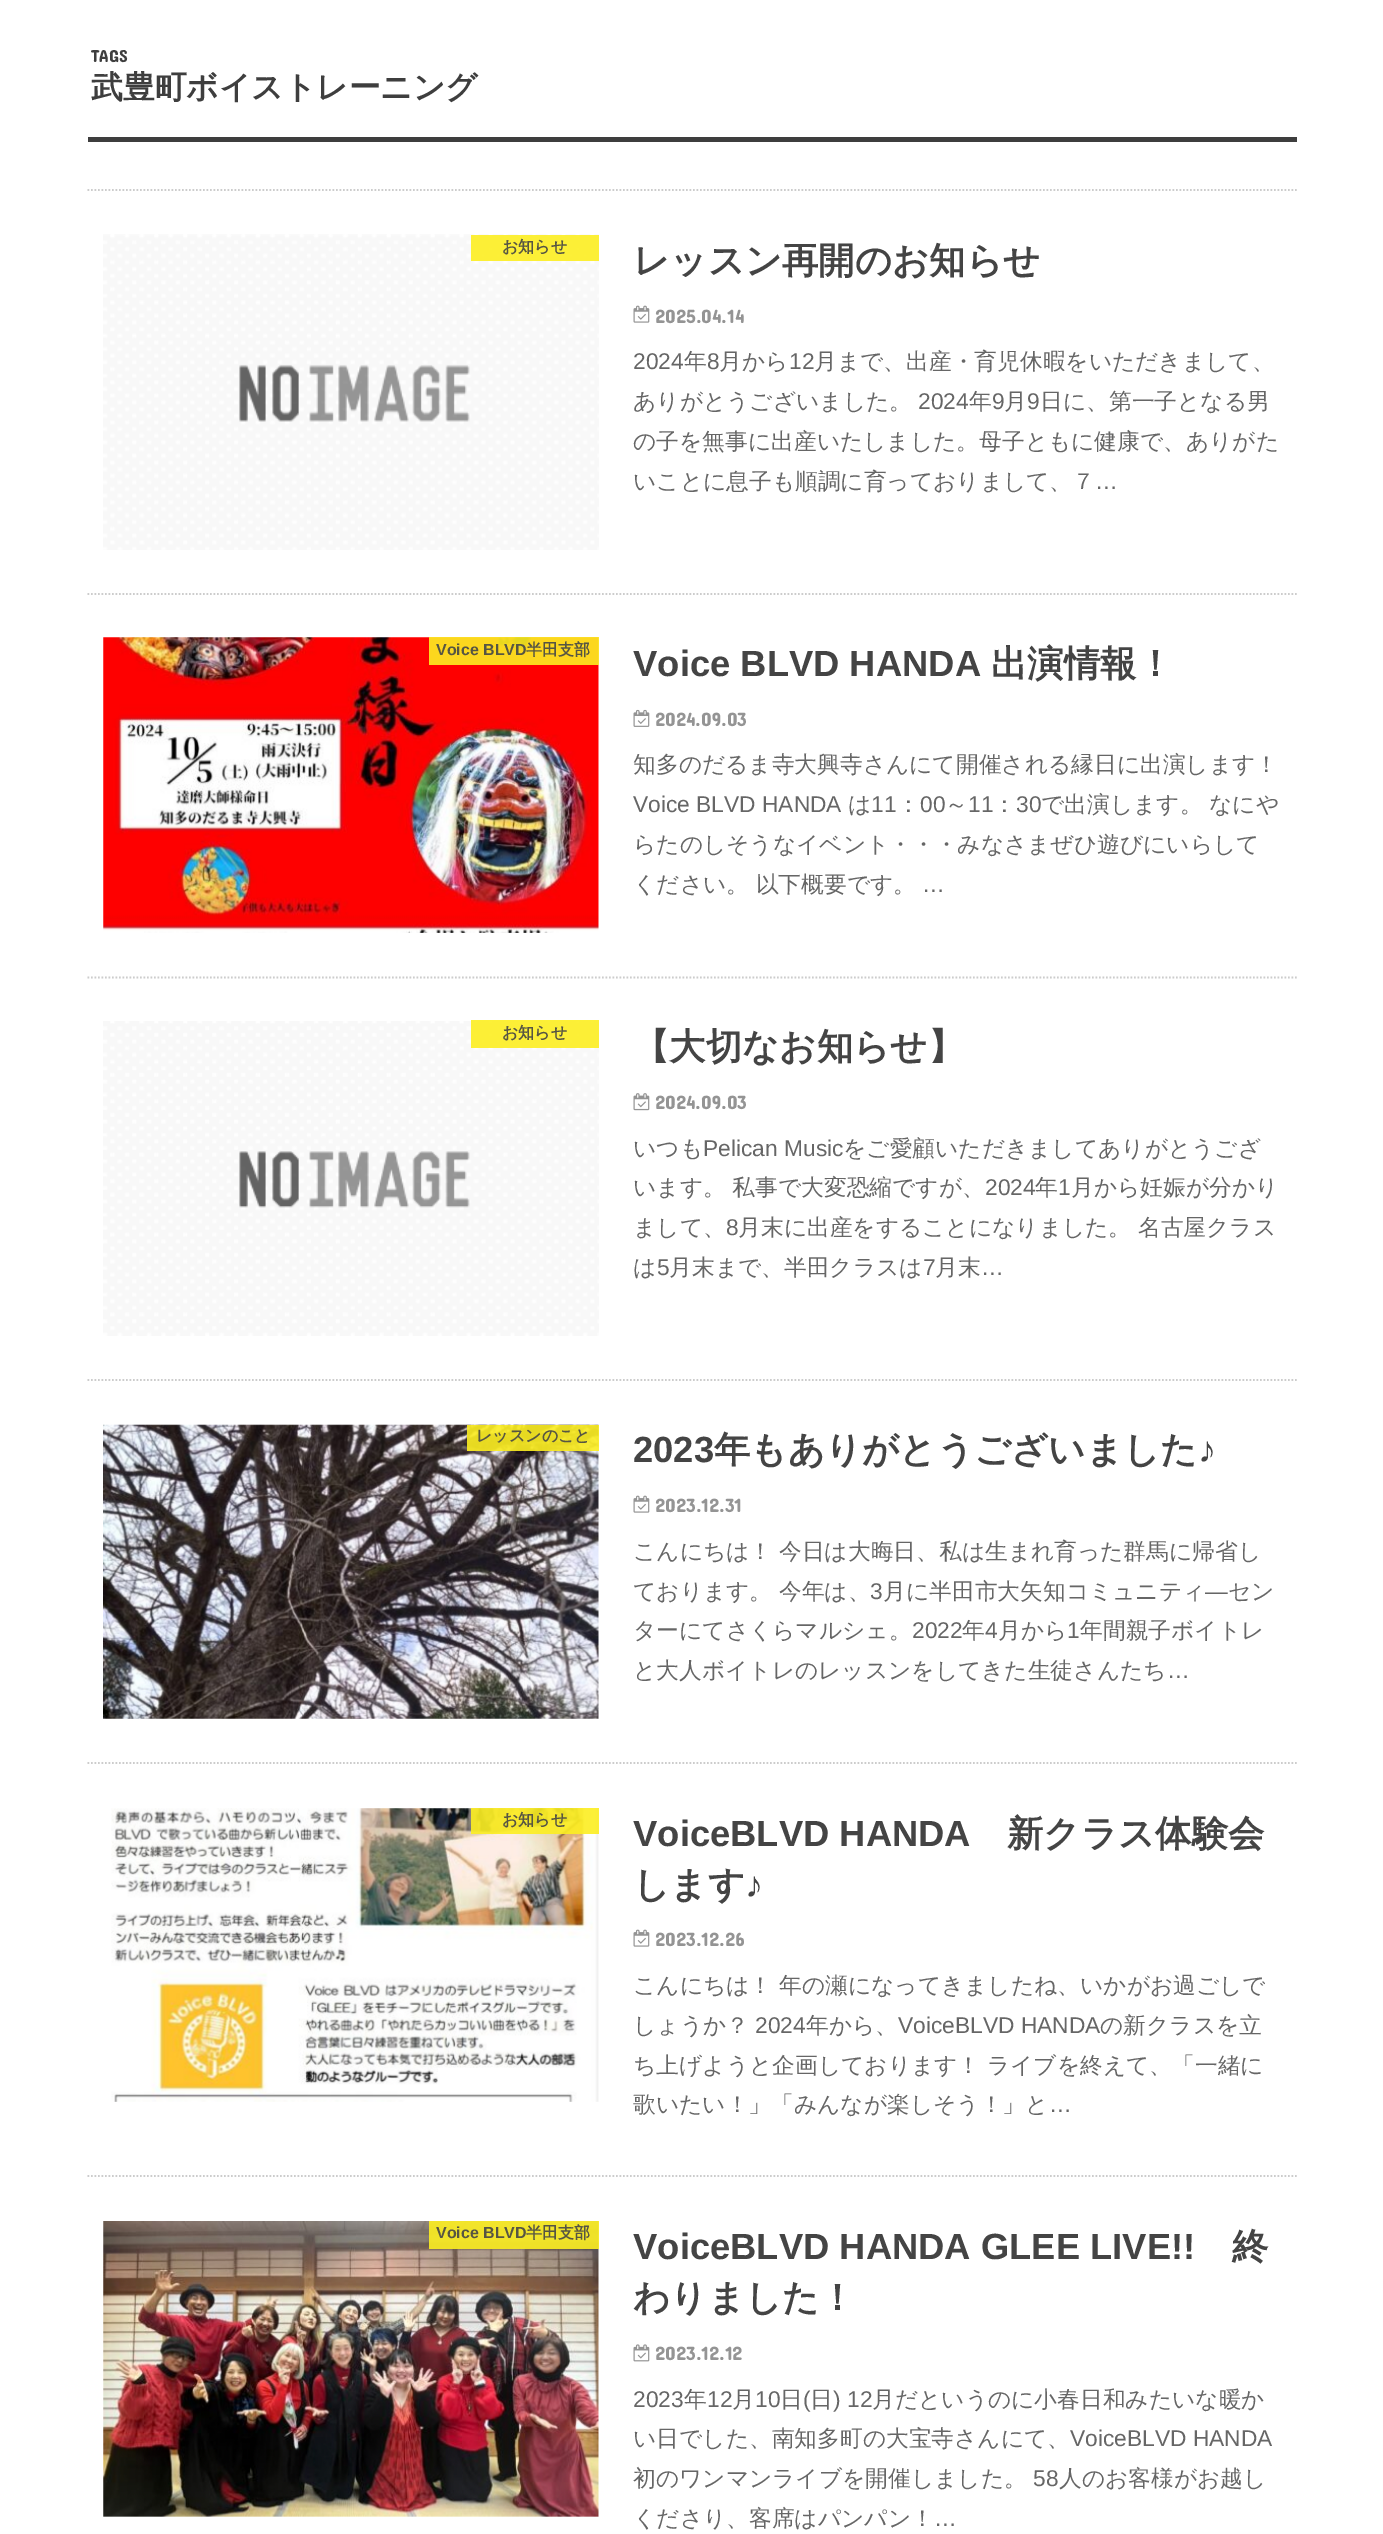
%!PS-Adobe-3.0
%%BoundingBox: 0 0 1383 2534
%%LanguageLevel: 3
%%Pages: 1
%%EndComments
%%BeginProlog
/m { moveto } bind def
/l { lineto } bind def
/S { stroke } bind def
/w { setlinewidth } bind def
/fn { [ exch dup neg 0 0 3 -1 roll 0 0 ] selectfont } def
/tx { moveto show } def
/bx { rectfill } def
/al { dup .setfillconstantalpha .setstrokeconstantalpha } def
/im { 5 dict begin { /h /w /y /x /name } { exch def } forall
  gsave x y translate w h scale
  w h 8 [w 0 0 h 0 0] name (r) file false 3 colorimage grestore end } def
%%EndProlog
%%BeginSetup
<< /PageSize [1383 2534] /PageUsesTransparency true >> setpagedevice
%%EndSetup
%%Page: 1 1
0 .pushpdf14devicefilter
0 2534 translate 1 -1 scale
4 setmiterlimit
1 setgray
0 0 1383 2534 bx
0.243 setgray
88 137 1209 5 bx
/ConcertOne-Regular 17.5 fn
(TAGS) 91 62 tx
/WenQuanYiZenHei-Bold 31.75 fn
(武豊町ボイストレーニング) 91 98 tx
0.8 setgray
1.8 w
[1.75 1.75] 0 setdash
87.5 190 m 1297 190 l S
87.5 594 m 1297 594 l S
(image0.raw) 103 234 496 316 im
0.9 al
0.988 0.933 0.129 setrgbcolor
471 235 128 26 bx
/WenQuanYiZenHei-Bold 16 fn
1 al
0.337 0.333 0.263 setrgbcolor
(お知らせ) 502 252 tx
/WenQuanYiZenHei-Bold 36.4 fn
0.267 setgray
(レッスン再開のお知らせ) 633 273 tx
(image1.raw) 633 305 17 18 im
/ConcertOne-Regular 19.5 fn
0.58 setgray
(2025.04.14) 655 323 tx
/LiberationSans-Regular 22.75 fn
0.4 setgray
(2024) 633 369 tx
/WenQuanYiZenHei-Medium 22.75 fn
(年) 684 369 tx
/LiberationSans-Regular 22.75 fn
(8) 707 369 tx
/WenQuanYiZenHei-Medium 22.75 fn
(月から) 719 369 tx
/LiberationSans-Regular 22.75 fn
(12) 789 369 tx
/WenQuanYiZenHei-Medium 22.75 fn
(月まで、出産・育児休暇をいただきまして、) 814 369 tx
(ありがとうございました。) 633 409 tx
/LiberationSans-Regular 22.75 fn
(2024) 918 409 tx
/WenQuanYiZenHei-Medium 22.75 fn
(年) 969 409 tx
/LiberationSans-Regular 22.75 fn
(9) 992 409 tx
/WenQuanYiZenHei-Medium 22.75 fn
(月) 1004 409 tx
/LiberationSans-Regular 22.75 fn
(9) 1027 409 tx
/WenQuanYiZenHei-Medium 22.75 fn
(日に、第一子となる男) 1040 409 tx
(の子を無事に出産いたしました。母子ともに健康で、ありがた) 633 449 tx
(いことに息子も順調に育っておりまして、７) 633 489 tx
/LiberationSans-Regular 22.75 fn
(…) 1095 489 tx
0.8 setgray
87.5 977.5 m 1297 977.5 l S
(image2.raw) 103 637 496 296 im
0.9 al
0.988 0.933 0.129 setrgbcolor
429 637 170 28 bx
/LiberationSans-Bold 16 fn
1 al
0.337 0.333 0.263 setrgbcolor
(Voice BLVD) 436 655 tx
/WenQuanYiZenHei-Bold 16 fn
(半田支部) 526 655 tx
/LiberationSans-Bold 36.4 fn
0.267 setgray
(Voice BLVD HANDA) 633 676 tx
/WenQuanYiZenHei-Bold 36.4 fn
(出演情報！) 991 676 tx
(image3.raw) 633 709 17 18 im
/ConcertOne-Regular 19.5 fn
0.58 setgray
(2024.09.03) 655 726 tx
/WenQuanYiZenHei-Medium 22.75 fn
0.4 setgray
(知多のだるま寺大興寺さんにて開催される縁日に出演します！) 633 772 tx
/LiberationSans-Regular 22.75 fn
(Voice BLVD HANDA) 633 812 tx
/WenQuanYiZenHei-Medium 22.75 fn
(は) 848 812 tx
/LiberationSans-Regular 22.75 fn
(11) 871 812 tx
/WenQuanYiZenHei-Medium 22.75 fn
(：) 897 812 tx
/LiberationSans-Regular 22.75 fn
(00) 920 812 tx
/WenQuanYiZenHei-Medium 22.75 fn
(～) 945 812 tx
/LiberationSans-Regular 22.75 fn
(11) 968 812 tx
/WenQuanYiZenHei-Medium 22.75 fn
(：) 993 812 tx
/LiberationSans-Regular 22.75 fn
(30) 1016 812 tx
/WenQuanYiZenHei-Medium 22.75 fn
(で出演します。) 1041 812 tx
(なにや) 1209 812 tx
(らたのしそうなイベント・・・みなさまぜひ遊びにいらして) 633 852 tx
(ください。 以下概要です。) 633 892 tx
/LiberationSans-Regular 22.75 fn
(…) 922 892 tx
0.8 setgray
87.5 1380 m 1297 1380 l S
(image4.raw) 103 1021 496 315 im
0.9 al
0.988 0.933 0.129 setrgbcolor
471 1020 128 28 bx
/WenQuanYiZenHei-Bold 16 fn
1 al
0.337 0.333 0.263 setrgbcolor
(お知らせ) 502 1038 tx
/WenQuanYiZenHei-Bold 36.4 fn
0.267 setgray
(【大切なお知らせ】) 633 1059 tx
(image5.raw) 633 1093 17 18 im
/ConcertOne-Regular 19.5 fn
0.58 setgray
(2024.09.03) 655 1109 tx
/WenQuanYiZenHei-Medium 22.75 fn
0.4 setgray
(いつも) 633 1156 tx
/LiberationSans-Regular 22.75 fn
(Pelican Music) 703 1156 tx
/WenQuanYiZenHei-Medium 22.75 fn
(をご愛顧いただきましてありがとうござ) 843 1156 tx
(います。 私事で大変恐縮ですが、) 633 1195 tx
/LiberationSans-Regular 22.75 fn
(2024) 985 1195 tx
/WenQuanYiZenHei-Medium 22.75 fn
(年) 1035 1195 tx
/LiberationSans-Regular 22.75 fn
(1) 1058 1195 tx
/WenQuanYiZenHei-Medium 22.75 fn
(月から妊娠が分かり) 1071 1195 tx
(まして、) 633 1235 tx
/LiberationSans-Regular 22.75 fn
(8) 726 1235 tx
/WenQuanYiZenHei-Medium 22.75 fn
(月末に出産をすることになりました。 名古屋クラス) 738 1235 tx
(は) 633 1275 tx
/LiberationSans-Regular 22.75 fn
(5) 657 1275 tx
/WenQuanYiZenHei-Medium 22.75 fn
(月末まで、半田クラスは) 669 1275 tx
/LiberationSans-Regular 22.75 fn
(7) 923 1275 tx
/WenQuanYiZenHei-Medium 22.75 fn
(月末) 935 1275 tx
/LiberationSans-Regular 22.75 fn
(…) 981 1275 tx
0.8 setgray
87.5 1763 m 1297 1763 l S
(image6.raw) 103 1424 496 295 im
0.9 al
0.988 0.933 0.129 setrgbcolor
467 1425 132 26 bx
/WenQuanYiZenHei-Bold 16 fn
1 al
0.337 0.333 0.263 setrgbcolor
(レッスンのこと) 476 1441 tx
/LiberationSans-Bold 36.4 fn
0.267 setgray
(2023) 633 1462 tx
/WenQuanYiZenHei-Bold 36.4 fn
(年もありがとうございました) 714 1462 tx
/LiberationSans-Bold 36.4 fn
(♪) 1198 1462 tx
(image1.raw) 633 1495 17 18 im
/ConcertOne-Regular 19.5 fn
0.58 setgray
(2023.12.31) 655 1512 tx
/WenQuanYiZenHei-Medium 22.75 fn
0.4 setgray
(こんにちは！ 今日は大晦日、私は生まれ育った群馬に帰省し) 633 1559 tx
(ております。 今年は、) 633 1599 tx
/LiberationSans-Regular 22.75 fn
(3) 870 1599 tx
/WenQuanYiZenHei-Medium 22.75 fn
(月に半田市大矢知コミュニティ) 883 1599 tx
/LiberationSans-Regular 22.75 fn
(―) 1205 1599 tx
/WenQuanYiZenHei-Medium 22.75 fn
(セン) 1228 1599 tx
(ターにてさくらマルシェ。) 633 1638 tx
/LiberationSans-Regular 22.75 fn
(2022) 912 1638 tx
/WenQuanYiZenHei-Medium 22.75 fn
(年) 962 1638 tx
/LiberationSans-Regular 22.75 fn
(4) 985 1638 tx
/WenQuanYiZenHei-Medium 22.75 fn
(月から) 998 1638 tx
/LiberationSans-Regular 22.75 fn
(1) 1067 1638 tx
/WenQuanYiZenHei-Medium 22.75 fn
(年間親子ボイトレ) 1080 1638 tx
(と大人ボイトレのレッスンをしてきた生徒さんたち) 633 1678 tx
/LiberationSans-Regular 22.75 fn
(…) 1167 1678 tx
0.8 setgray
87.5 2176 m 1297 2176 l S
(image7.raw) 111 1808 488 294 im
0.9 al
0.988 0.933 0.129 setrgbcolor
471 1808 128 26 bx
/WenQuanYiZenHei-Bold 16 fn
1 al
0.337 0.333 0.263 setrgbcolor
(お知らせ) 502 1825 tx
/LiberationSans-Bold 36.4 fn
0.267 setgray
(VoiceBLVD HANDA) 633 1846 tx
/WenQuanYiZenHei-Bold 36.4 fn
(新クラス体験会) 1007 1846 tx
(します) 633 1897 tx
/LiberationSans-Bold 36.4 fn
(♪) 745 1897 tx
(image1.raw) 633 1929 17 18 im
/ConcertOne-Regular 19.5 fn
0.58 setgray
(2023.12.26) 655 1946 tx
/WenQuanYiZenHei-Medium 22.75 fn
0.4 setgray
(こんにちは！ 年の瀬になってきましたね、いかがお過ごしで) 633 1993 tx
(しょうか？) 633 2033 tx
/LiberationSans-Regular 22.75 fn
(2024) 755 2033 tx
/WenQuanYiZenHei-Medium 22.75 fn
(年から、) 806 2033 tx
/LiberationSans-Regular 22.75 fn
(VoiceBLVD HANDA) 898 2033 tx
/WenQuanYiZenHei-Medium 22.75 fn
(の新クラスを立) 1100 2033 tx
(ち上げようと企画しております！ ライブを終えて、「一緒に) 633 2073 tx
(歌いたい！」「みんなが楽しそう！」と) 633 2112 tx
/LiberationSans-Regular 22.75 fn
(…) 1049 2112 tx
(image8.raw) 103 2221 496 296 im
0.9 al
0.988 0.933 0.129 setrgbcolor
429 2221 170 28 bx
/LiberationSans-Bold 16 fn
1 al
0.337 0.333 0.263 setrgbcolor
(Voice BLVD) 436 2238 tx
/WenQuanYiZenHei-Bold 16 fn
(半田支部) 526 2238 tx
/LiberationSans-Bold 36.4 fn
0.267 setgray
(VoiceBLVD HANDA GLEE LIVE!!) 633 2259 tx
/WenQuanYiZenHei-Bold 36.4 fn
(終) 1232 2259 tx
(わりました！) 633 2310 tx
(image9.raw) 633 2344 17 18 im
/ConcertOne-Regular 19.5 fn
0.58 setgray
(2023.12.12) 655 2360 tx
/LiberationSans-Regular 22.75 fn
0.4 setgray
(2023) 633 2407 tx
/WenQuanYiZenHei-Medium 22.75 fn
(年) 684 2407 tx
/LiberationSans-Regular 22.75 fn
(12) 707 2407 tx
/WenQuanYiZenHei-Medium 22.75 fn
(月) 732 2407 tx
/LiberationSans-Regular 22.75 fn
(10) 755 2407 tx
/WenQuanYiZenHei-Medium 22.75 fn
(日) 780 2407 tx
/LiberationSans-Regular 22.75 fn
(\() 803 2407 tx
/WenQuanYiZenHei-Medium 22.75 fn
(日) 810 2407 tx
/LiberationSans-Regular 22.75 fn
(\) 12) 833 2407 tx
/WenQuanYiZenHei-Medium 22.75 fn
(月だというのに小春日和みたいな暖か) 872 2407 tx
(い日でした、南知多町の大宝寺さんにて、) 633 2446 tx
/LiberationSans-Regular 22.75 fn
(VoiceBLVD HANDA) 1070 2446 tx
/WenQuanYiZenHei-Medium 22.75 fn
(初のワンマンライブを開催しました。) 633 2486 tx
/LiberationSans-Regular 22.75 fn
(58) 1033 2486 tx
/WenQuanYiZenHei-Medium 22.75 fn
(人のお客様がお越し) 1059 2486 tx
(くださり、客席はパンパン！) 633 2526 tx
/LiberationSans-Regular 22.75 fn
(…) 934 2526 tx
.poppdf14devicefilter showpage
%%EOF
